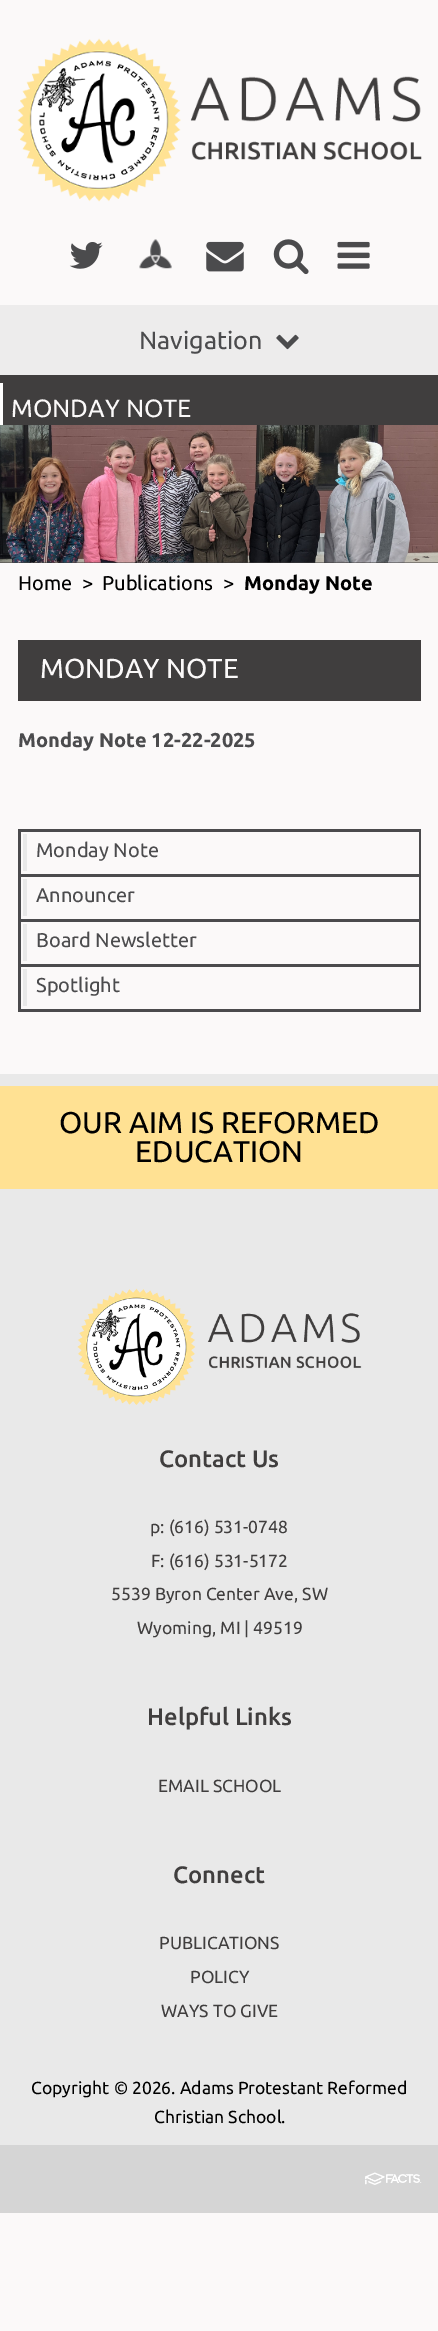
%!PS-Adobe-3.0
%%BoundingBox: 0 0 438 2331
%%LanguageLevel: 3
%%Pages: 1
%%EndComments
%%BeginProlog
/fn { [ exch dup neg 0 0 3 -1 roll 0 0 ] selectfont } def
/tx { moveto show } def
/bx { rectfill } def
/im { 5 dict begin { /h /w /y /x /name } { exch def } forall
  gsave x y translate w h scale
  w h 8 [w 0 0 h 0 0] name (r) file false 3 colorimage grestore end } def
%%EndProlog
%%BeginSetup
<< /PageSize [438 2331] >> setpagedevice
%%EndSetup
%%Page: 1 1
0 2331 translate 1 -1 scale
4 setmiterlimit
0.984 0.976 0.976 setrgbcolor
0 0 438 2331 bx
(image0.raw) 17 38 405 164 im
(image1.raw) 69 242 34 27 im
(image2.raw) 139 239 33 30 im
(image3.raw) 206 241 38 31 im
(image4.raw) 273 239 36 36 im
(image5.raw) 337 241 33 28 im
0.251 0.243 0.243 setrgbcolor
0 375 438 188 bx
0.929 0.925 0.925 setrgbcolor
0 305 438 70 bx
/Ubuntu-Regular 25 fn
0.294 0.294 0.302 setrgbcolor
(Navigation) 139 349 tx
(image6.raw) 276 334 23 16 im
1 setgray
0 383 3 50 bx
0.984 0.976 0.976 setrgbcolor
(MONDAY NOTE) 11 417 tx
(image7.raw) 0 425 438 138 im
/Ubuntu-Regular 20 fn
0 setgray
(Home) 18 590 tx
(>) 82 590 tx
(Publications) 102 590 tx
(>) 223 590 tx
/Ubuntu-Bold 20 fn
(Monday Note) 244 590 tx
0.251 0.243 0.243 setrgbcolor
18 640 403 61 bx
/Ubuntu-Regular 27.5 fn
0.984 0.976 0.976 setrgbcolor
(MONDAY NOTE) 40 678 tx
/Ubuntu-Bold 20 fn
0.294 0.294 0.302 setrgbcolor
(Monday Note 12-22-2025) 18 747 tx
18 1009 403 3 bx
18 829 403 3 bx
419 829 2 45 bx
18 829 3 45 bx
0.914 setgray
23 834 4 37 bx
/Ubuntu-Regular 20 fn
0.294 0.294 0.302 setrgbcolor
(Monday Note) 36 857 tx
18 874 403 3 bx
419 874 2 45 bx
18 874 3 45 bx
0.914 setgray
23 879 4 37 bx
0.294 0.294 0.302 setrgbcolor
(Announcer) 36 902 tx
18 919 403 3 bx
419 919 2 45 bx
18 919 3 45 bx
0.914 setgray
23 924 4 37 bx
0.294 0.294 0.302 setrgbcolor
(Board Newsletter) 36 947 tx
18 964 403 3 bx
419 964 2 45 bx
18 964 3 45 bx
0.914 setgray
23 969 4 37 bx
0.294 0.294 0.302 setrgbcolor
(Spotlight) 36 992 tx
0.914 setgray
0 1074 438 1071 bx
1 0.882 0.576 setrgbcolor
0 1086 438 103 bx
/Ubuntu-Regular 30 fn
0 setgray
(OUR AIM IS REFORMED) 59 1133 tx
(EDUCATION) 135 1162 tx
(image8.raw) 77 1288 285 117 im
/Ubuntu-Medium 23.75 fn
0.251 0.243 0.243 setrgbcolor
(Contact Us) 159 1467 tx
/Ubuntu-Regular 17.5 fn
(p: \(616\) 531-0748) 150 1533 tx
(F: \(616\) 531-5172) 151 1567 tx
(5539 Byron Center Ave, SW) 111 1600 tx
(Wyoming, MI | 49519) 137 1634 tx
/Ubuntu-Medium 23.75 fn
(Helpful Links) 147 1725 tx
/Ubuntu-Regular 17.5 fn
(EMAIL SCHOOL) 158 1792 tx
/Ubuntu-Medium 23.75 fn
(Connect) 173 1883 tx
/Ubuntu-Regular 17.5 fn
(PUBLICATIONS) 159 1949 tx
(POLICY) 190 1983 tx
(WAYS TO GIVE) 161 2017 tx
0 setgray
(Copyright © 2026. Adams Protestant Reformed) 31 2094 tx
(Christian School.) 154 2123 tx
0.835 setgray
0 2145 438 68 bx
(image9.raw) 365 2172 57 13 im
showpage
%%EOF
